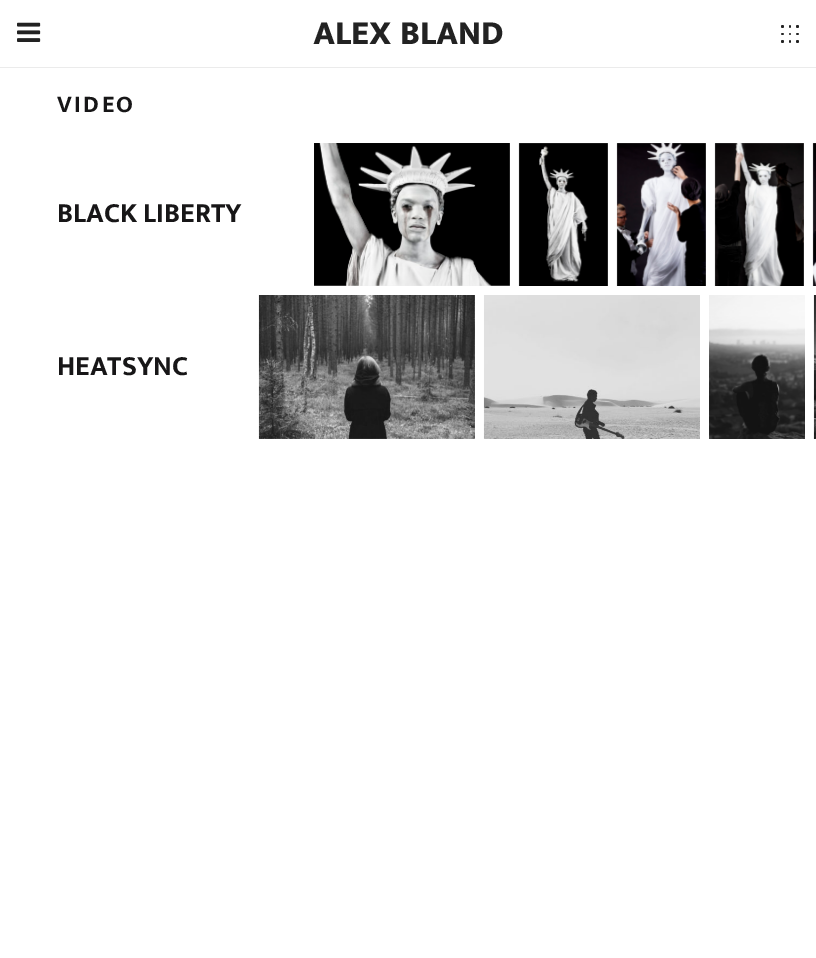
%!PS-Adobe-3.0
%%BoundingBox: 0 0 816 958
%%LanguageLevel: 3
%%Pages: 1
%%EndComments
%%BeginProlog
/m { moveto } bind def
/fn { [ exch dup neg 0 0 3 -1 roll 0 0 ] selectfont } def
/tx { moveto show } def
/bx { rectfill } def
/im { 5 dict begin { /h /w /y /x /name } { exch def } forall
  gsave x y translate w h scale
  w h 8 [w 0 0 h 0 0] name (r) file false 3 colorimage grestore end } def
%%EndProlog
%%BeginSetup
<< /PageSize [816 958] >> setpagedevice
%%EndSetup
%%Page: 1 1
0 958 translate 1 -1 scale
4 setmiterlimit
1 setgray
0 0 816 958 bx
(image0.raw) 17 22 24 20 im
/Mukta-ExtraBold 34.25 fn
0.133 setgray
(ALEX BLAND) 313 44 tx
(image1.raw) 781 25 18 18 im
0.922 setgray
0 67 816 1 bx
/Mukta-Bold 24 fn
0.09 0.086 0.09 setrgbcolor
57 112 m 2.5 0 (VIDEO) ashow
/Mukta-Bold 28 fn
(BLACK LIBERTY) 57 222 tx
0.933 setgray
314 143 196 143 bx
(image2.raw) 314 143 196 143 im
(image3.raw) 518 143 90 143 im
(image4.raw) 616 143 90 143 im
(image5.raw) 714 143 90 143 im
(image6.raw) 812 143 4 143 im
0.09 0.086 0.09 setrgbcolor
(HEATSYNC) 57 375 tx
(image7.raw) 258 295 217 144 im
(image8.raw) 483 295 217 144 im
(image9.raw) 709 295 96 144 im
(image10.raw) 813 295 3 144 im
showpage
%%EOF
